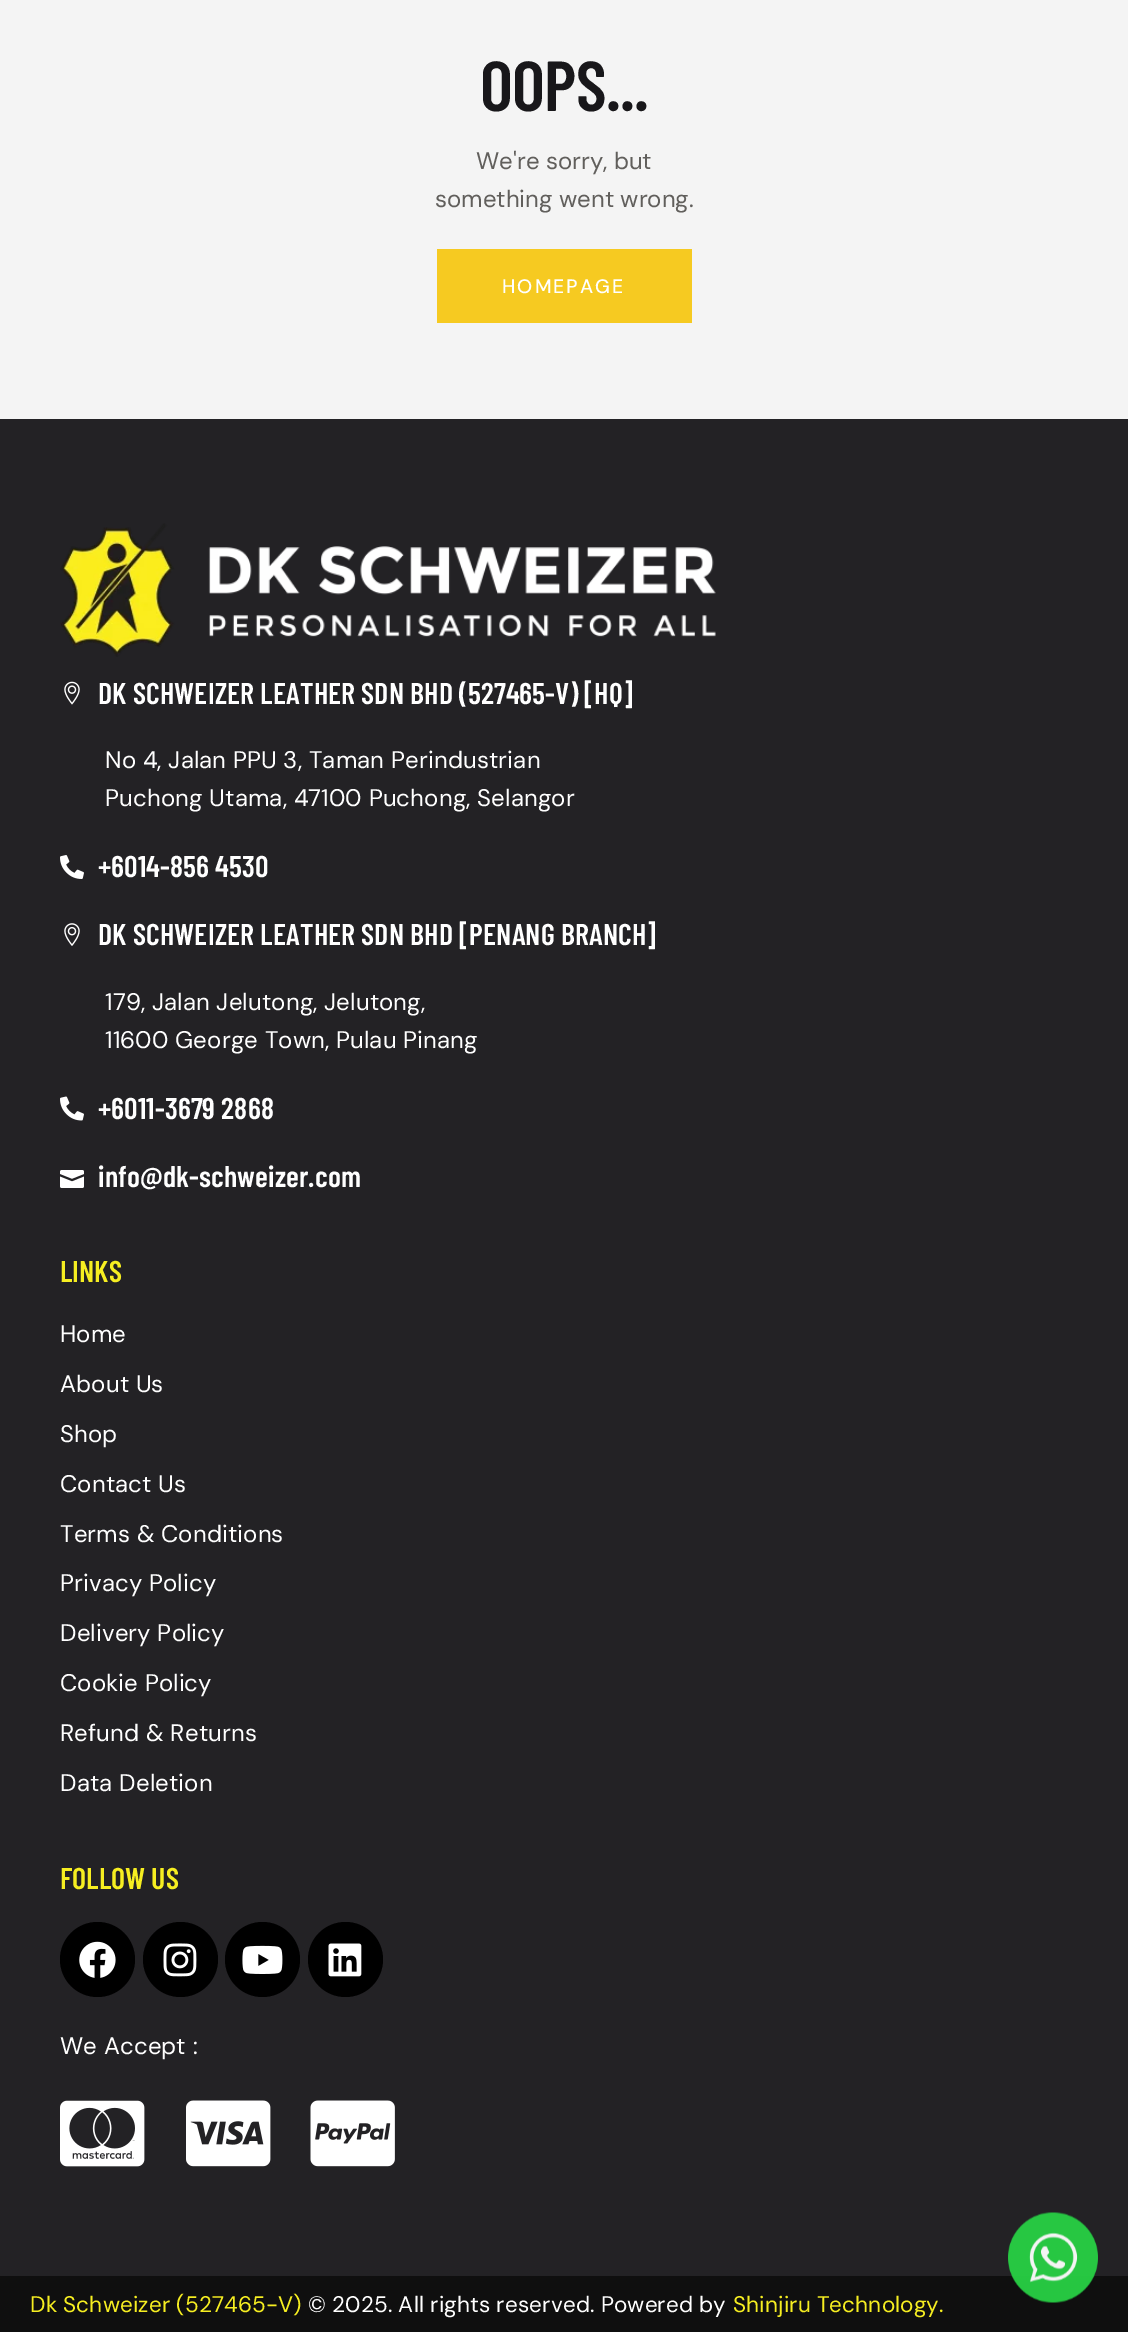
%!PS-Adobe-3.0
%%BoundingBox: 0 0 1128 2332
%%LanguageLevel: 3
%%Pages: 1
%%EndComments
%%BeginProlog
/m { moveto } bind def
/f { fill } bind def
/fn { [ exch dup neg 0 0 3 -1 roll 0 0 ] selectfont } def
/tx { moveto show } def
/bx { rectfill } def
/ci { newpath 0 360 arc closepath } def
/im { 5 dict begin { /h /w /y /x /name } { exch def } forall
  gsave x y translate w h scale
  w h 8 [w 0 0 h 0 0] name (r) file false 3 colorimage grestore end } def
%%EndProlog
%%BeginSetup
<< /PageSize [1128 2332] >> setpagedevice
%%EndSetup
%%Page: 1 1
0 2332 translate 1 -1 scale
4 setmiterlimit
0.957 setgray
0 0 1128 2332 bx
/BarlowCondensed-SemiBold 70.5 fn
0.094 0.09 0.102 setrgbcolor
480 111 m -0.75 0 (OOPS...) ashow
/DMSans-Regular 24 fn
0.38 0.373 0.361 setrgbcolor
(We're sorry, but) 476 169 tx
(something went wrong.) 435 207 tx
0.965 0.792 0.129 setrgbcolor
437 249 255 74 bx
/DMSans-Medium 19.5 fn
1 setgray
502 293 m 2 0 (HOMEPAGE) ashow
0.137 0.133 0.145 setrgbcolor
0 419 1128 1857 bx
(image0.raw) 60 523 656 134 im
(image1.raw) 64 681 16 24 im
/BarlowCondensed-SemiBold 30 fn
1 setgray
98 704 m 0.15 0 (DK SCHWEIZER LEATHER SDN BHD \(527465-V\) [HQ]) ashow
/DMSans-Regular 24 fn
105 768 m 0.15 0 (No 4, Jalan PPU 3, Taman Perindustrian) ashow
105 806 m 0.15 0 (Puchong Utama, 47100 Puchong, Selangor) ashow
(image2.raw) 60 855 24 24 im
/BarlowCondensed-SemiBold 30 fn
98 877 m 0.15 0 (+6014-856 4530) ashow
(image3.raw) 64 923 16 23 im
98 945 m 0.15 0 (DK SCHWEIZER LEATHER SDN BHD [PENANG BRANCH]) ashow
/DMSans-Regular 24 fn
105 1010 m 0.15 0 (179, Jalan Jelutong, Jelutong,) ashow
105 1048 m 0.15 0 (11600 George Town, Pulau Pinang) ashow
(image4.raw) 60 1096 24 25 im
/BarlowCondensed-SemiBold 30 fn
98 1119 m 0.15 0 (+6011-3679 2868) ashow
(image5.raw) 60 1170 24 18 im
98 1187 m 0.15 0 (info@dk-schweizer.com) ashow
0.965 0.933 0.129 setrgbcolor
(LINKS) 60 1282 tx
/DMSans-Regular 24 fn
1 setgray
60 1342 m 0.15 0 (Home) ashow
60 1392 m 0.15 0 (About Us) ashow
60 1442 m 0.15 0 (Shop) ashow
60 1492 m 0.15 0 (Contact Us) ashow
60 1542 m 0.15 0 (Terms & Conditions) ashow
60 1591 m 0.15 0 (Privacy Policy) ashow
60 1641 m 0.15 0 (Delivery Policy) ashow
60 1691 m 0.15 0 (Cookie Policy) ashow
60 1741 m 0.15 0 (Refund & Returns) ashow
60 1791 m 0.15 0 (Data Deletion) ashow
/BarlowCondensed-SemiBold 30 fn
0.965 0.933 0.129 setrgbcolor
(FOLLOW US) 60 1889 tx
0 setgray
97.5 1959.5 37.5 ci f
(image6.raw) 79 1941 37 37 im
180.5 1959.5 37.5 ci f
(image7.raw) 163 1943 34 34 im
262.5 1959.5 37.5 ci f
(image8.raw) 242 1945 41 29 im
345.5 1959.5 37.5 ci f
(image9.raw) 328 1943 34 34 im
/DMSans-Regular 24 fn
1 setgray
60 2054 m 0.15 0 (We Accept :) ashow
(image10.raw) 60 2100 85 67 im
(image11.raw) 186 2100 85 67 im
(image12.raw) 310 2100 85 67 im
0.059 setgray
0 2276 1128 56 bx
/DMSans-Regular 22.5 fn
0.965 0.933 0.129 setrgbcolor
30 2312 m 0.15 0 (Dk Schweizer \(527465-V\)) ashow
1 setgray
308 2312 m 0.15 0 (© 2025. All rights reserved. Powered by) ashow
0.965 0.933 0.129 setrgbcolor
733 2312 m 0.15 0 (Shinjiru Technology.) ashow
(image13.raw) 1008 2212 90 91 im
showpage
%%EOF
